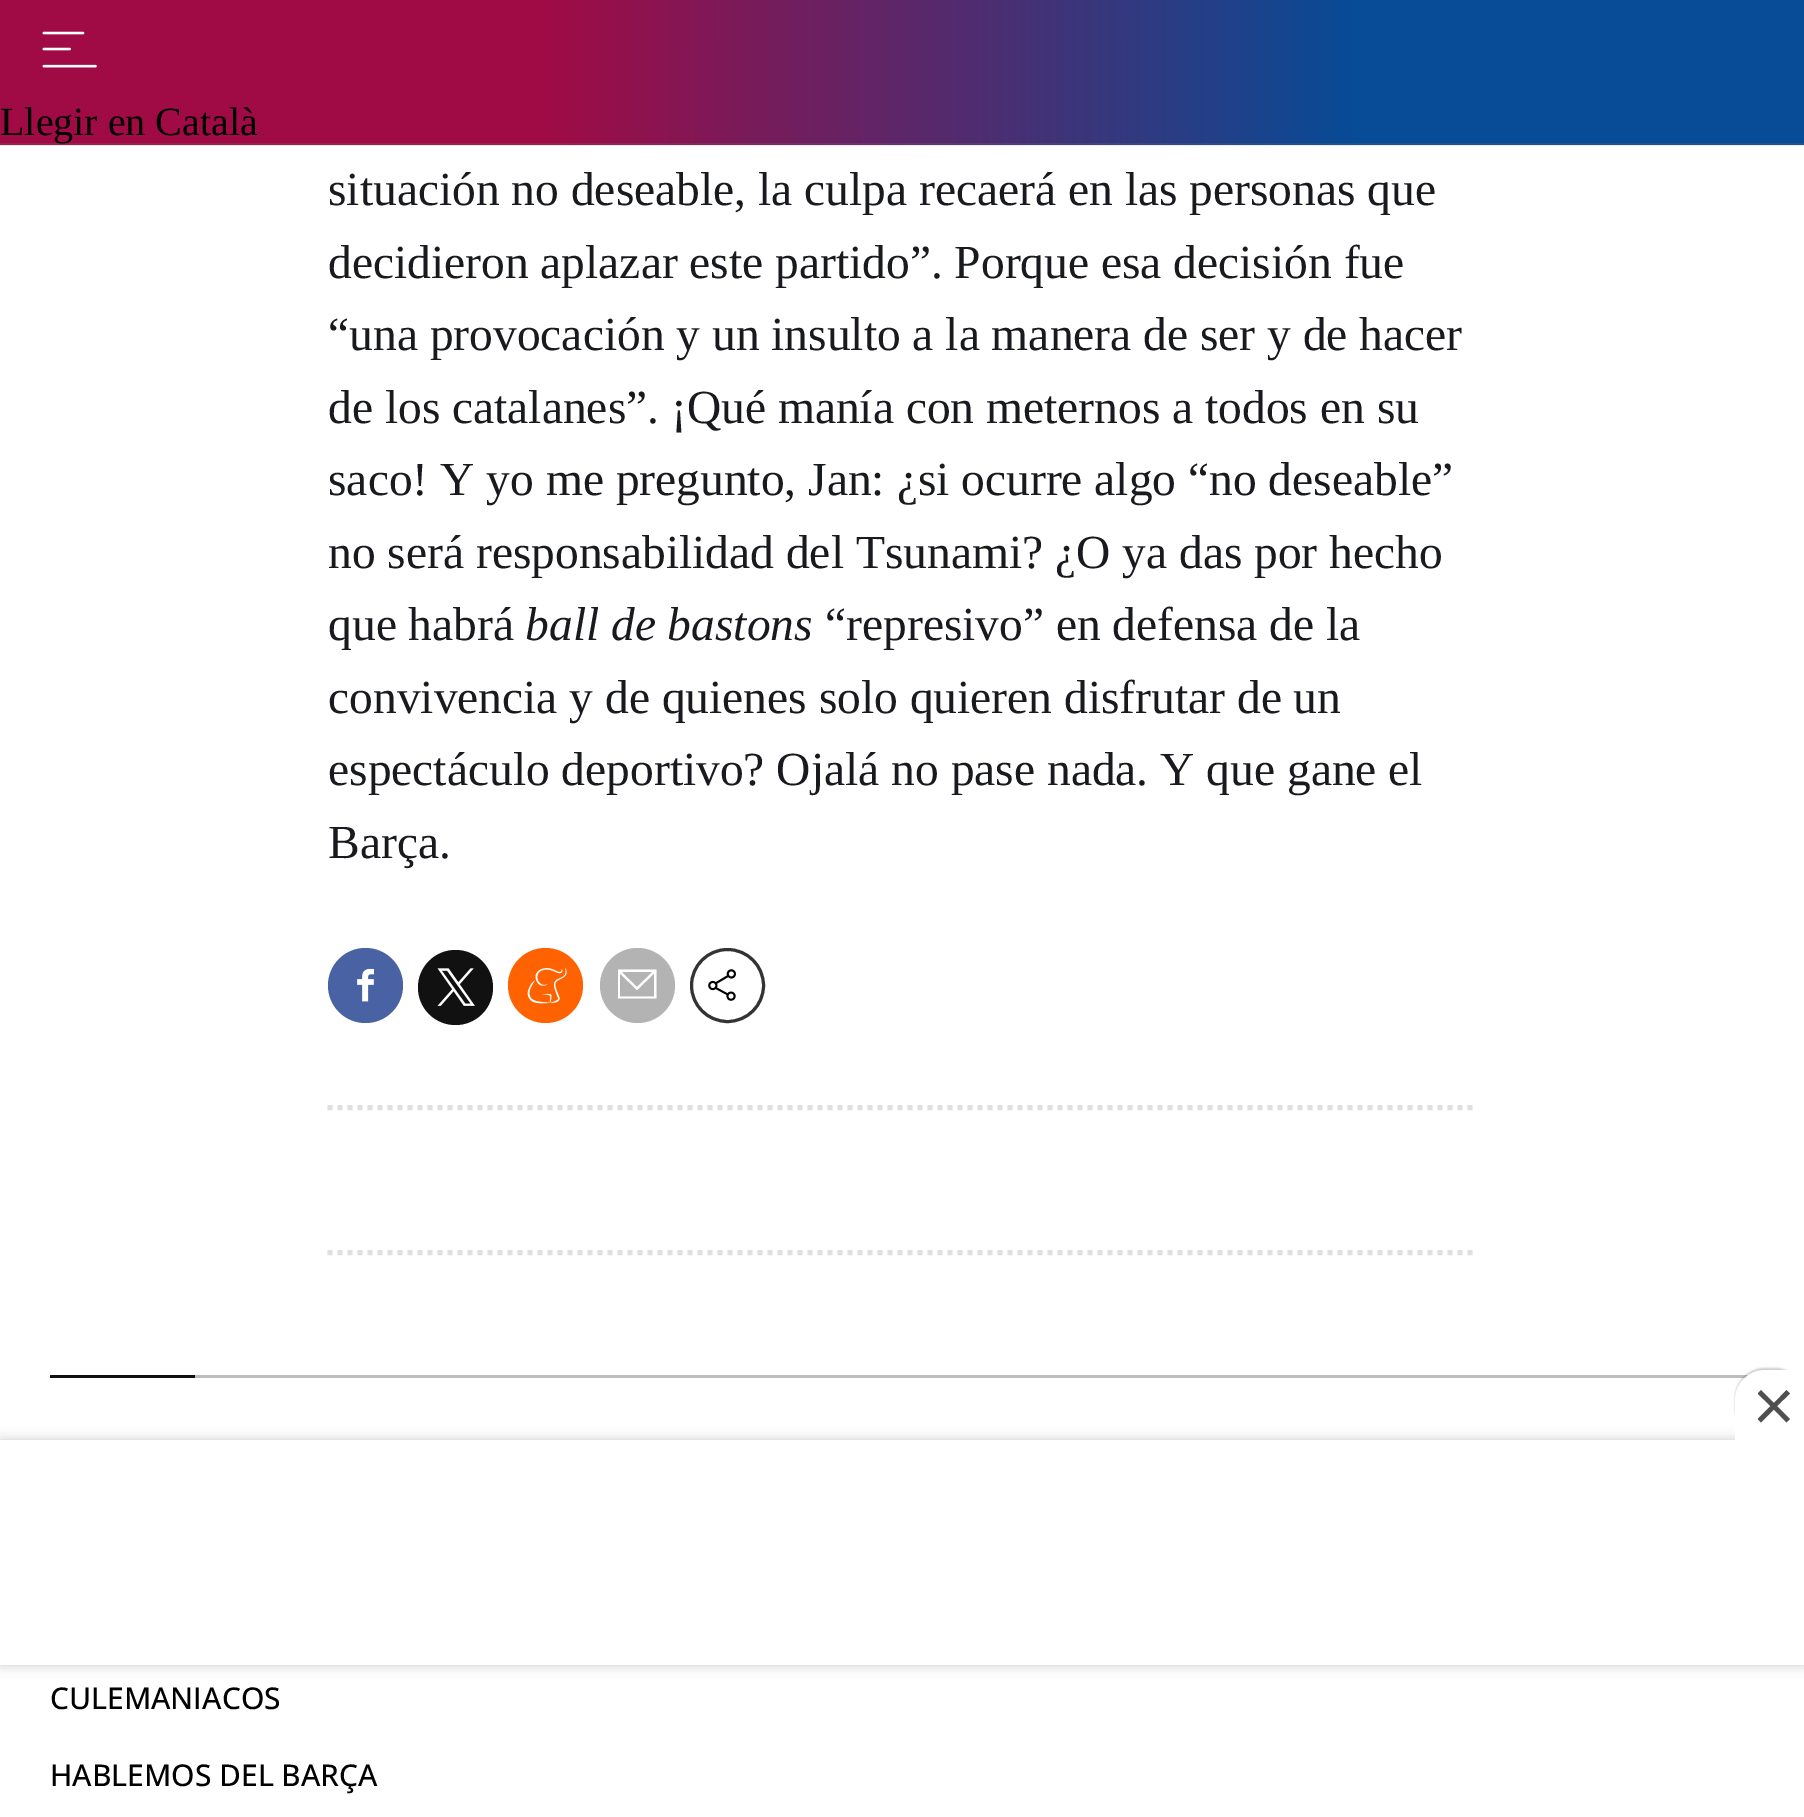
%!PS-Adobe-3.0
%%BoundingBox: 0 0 1804 1817
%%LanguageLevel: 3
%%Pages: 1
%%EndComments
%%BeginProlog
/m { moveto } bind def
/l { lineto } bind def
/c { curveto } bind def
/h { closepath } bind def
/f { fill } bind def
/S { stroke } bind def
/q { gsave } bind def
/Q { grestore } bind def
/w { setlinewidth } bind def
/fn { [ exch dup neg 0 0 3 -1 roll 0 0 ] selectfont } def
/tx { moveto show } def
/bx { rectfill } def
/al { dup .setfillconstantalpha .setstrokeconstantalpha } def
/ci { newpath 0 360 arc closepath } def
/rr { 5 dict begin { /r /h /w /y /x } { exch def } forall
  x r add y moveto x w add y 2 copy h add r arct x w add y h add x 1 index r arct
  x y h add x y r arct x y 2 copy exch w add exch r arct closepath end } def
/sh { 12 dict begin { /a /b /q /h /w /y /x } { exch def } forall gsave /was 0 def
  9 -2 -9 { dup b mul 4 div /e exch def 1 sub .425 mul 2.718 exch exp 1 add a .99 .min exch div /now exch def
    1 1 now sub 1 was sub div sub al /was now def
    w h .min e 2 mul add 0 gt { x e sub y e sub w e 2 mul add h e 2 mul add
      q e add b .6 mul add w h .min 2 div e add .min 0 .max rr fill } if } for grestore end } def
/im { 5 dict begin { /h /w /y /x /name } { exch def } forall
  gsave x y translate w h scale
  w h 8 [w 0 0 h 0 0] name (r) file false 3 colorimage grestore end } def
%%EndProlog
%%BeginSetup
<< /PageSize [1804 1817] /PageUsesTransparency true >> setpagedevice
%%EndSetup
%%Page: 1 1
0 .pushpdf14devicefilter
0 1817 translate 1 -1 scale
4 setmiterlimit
1 setgray
0 0 1804 1817 bx
q 0 0 m 1804 0 l 1804 145 l 0 145 l h clip newpath
<< /ShadingType 2 /ColorSpace /DeviceRGB /Coords [0 73 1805 72] /Extend [true true] /Function << /FunctionType 3 /Domain [0 1] /Functions [<< /FunctionType 2 /Domain [0 1] /C0 [0.631 0.043 0.271] /C1 [0.631 0.043 0.271] /N 1 >> << /FunctionType 2 /Domain [0 1] /C0 [0.631 0.043 0.271] /C1 [0.031 0.294 0.588] /N 1 >> << /FunctionType 2 /Domain [0 1] /C0 [0.031 0.294 0.588] /C1 [0.031 0.294 0.588] /N 1 >>] /Bounds [0.3 0.75] /Encode [0 1 0 1 0 1] >> >> shfill Q
(image0.raw) 42 31 55 37 im
/LiberationSerif-Regular 40 fn
0 setgray
(Llegir en Català) 0 135 tx
0.16 al
0.525 setgray
0 143 1804 3 bx
/LiberationSerif-Regular 47.5 fn
1 al
0.098 0.102 0.118 setrgbcolor
(situación no deseable, la culpa recaerá en las personas que) 328 205 tx
(decidieron aplazar este partido”. Porque esa decisión fue) 328 278 tx
(“una provocación y un insulto a la manera de ser y de hacer) 328 350 tx
(de los catalanes”. ¡Qué manía con meternos a todos en su) 328 423 tx
(saco! Y yo me pregunto, Jan: ¿si ocurre algo “no deseable”) 328 495 tx
(no será responsabilidad del Tsunami? ¿O ya das por hecho) 328 568 tx
(que habrá) 328 640 tx
/LiberationSerif-Italic 47.5 fn
(ball de bastons) 525 640 tx
/LiberationSerif-Regular 47.5 fn
(“represivo” en defensa de la) 825 640 tx
(convivencia y de quienes solo quieren disfrutar de un) 328 713 tx
(espectáculo deportivo? Ojalá no pase nada. Y que gane el) 328 785 tx
(Barça.) 328 858 tx
0.282 0.384 0.639 setrgbcolor
365.5 985.5 37.5 ci f
(image1.raw) 357 968 17 34 im
0.067 setgray
455.5 987.5 37.5 ci f
(image2.raw) 437 968 38 38 im
1 0.384 0 setrgbcolor
545.5 985.5 37.5 ci f
(image3.raw) 527 968 40 36 im
0.702 setgray
637.5 985.5 37.5 ci f
1 setgray
621.5 972 m 637 987 l 652.5 972 l h 620 996.5 m 654 996.5 l 654 973.5 l 637 990 l 620 973.5 l h 618 998.5 m 618 969.5 l 656.5 969.5 l 656.5 998.5 l h f
0.2 setgray
3 w
727.5 985.5 36 ci S
(image4.raw) 708 969 28 32 im
0.875 setgray
5 w
[5 5] 0 setdash
327.5 1107.5 m 1477.5 1107.5 l S
327.5 1252.5 m 1477.5 1252.5 l S
0 setgray
0 1440 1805 225 0 6 0.2 sh
1 setgray
0 1440 1804 225 bx
0.741 setgray
195 1375 1560 3 bx
0 setgray
1735 1368 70 70 30 1 0.2 sh
1 setgray
1765 1370 m 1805 1370 l 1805 1440 l 1735 1440 l 1735 1400 l 1735 1383.5 1748.5 1370 1765 1370 c h f
q
1758 1390 32 33 rectclip
0.31 setgray
1790 1393.5 m 1786.5 1390 l 1774 1403 l 1761 1390 l 1757.5 1393.5 l 1770.5 1406 l 1757.5 1419 l 1761 1422.5 l 1774 1409.5 l 1786.5 1422.5 l 1790 1419 l 1777 1406 l h eofill
Q
0.067 setgray
50 1375 145 3 bx
/OpenSans-Medium 30 fn
0 setgray
(CULEMANIACOS) 50 1709 tx
(HABLEMOS DEL BARÇA) 50 1786 tx
.poppdf14devicefilter showpage
%%EOF
